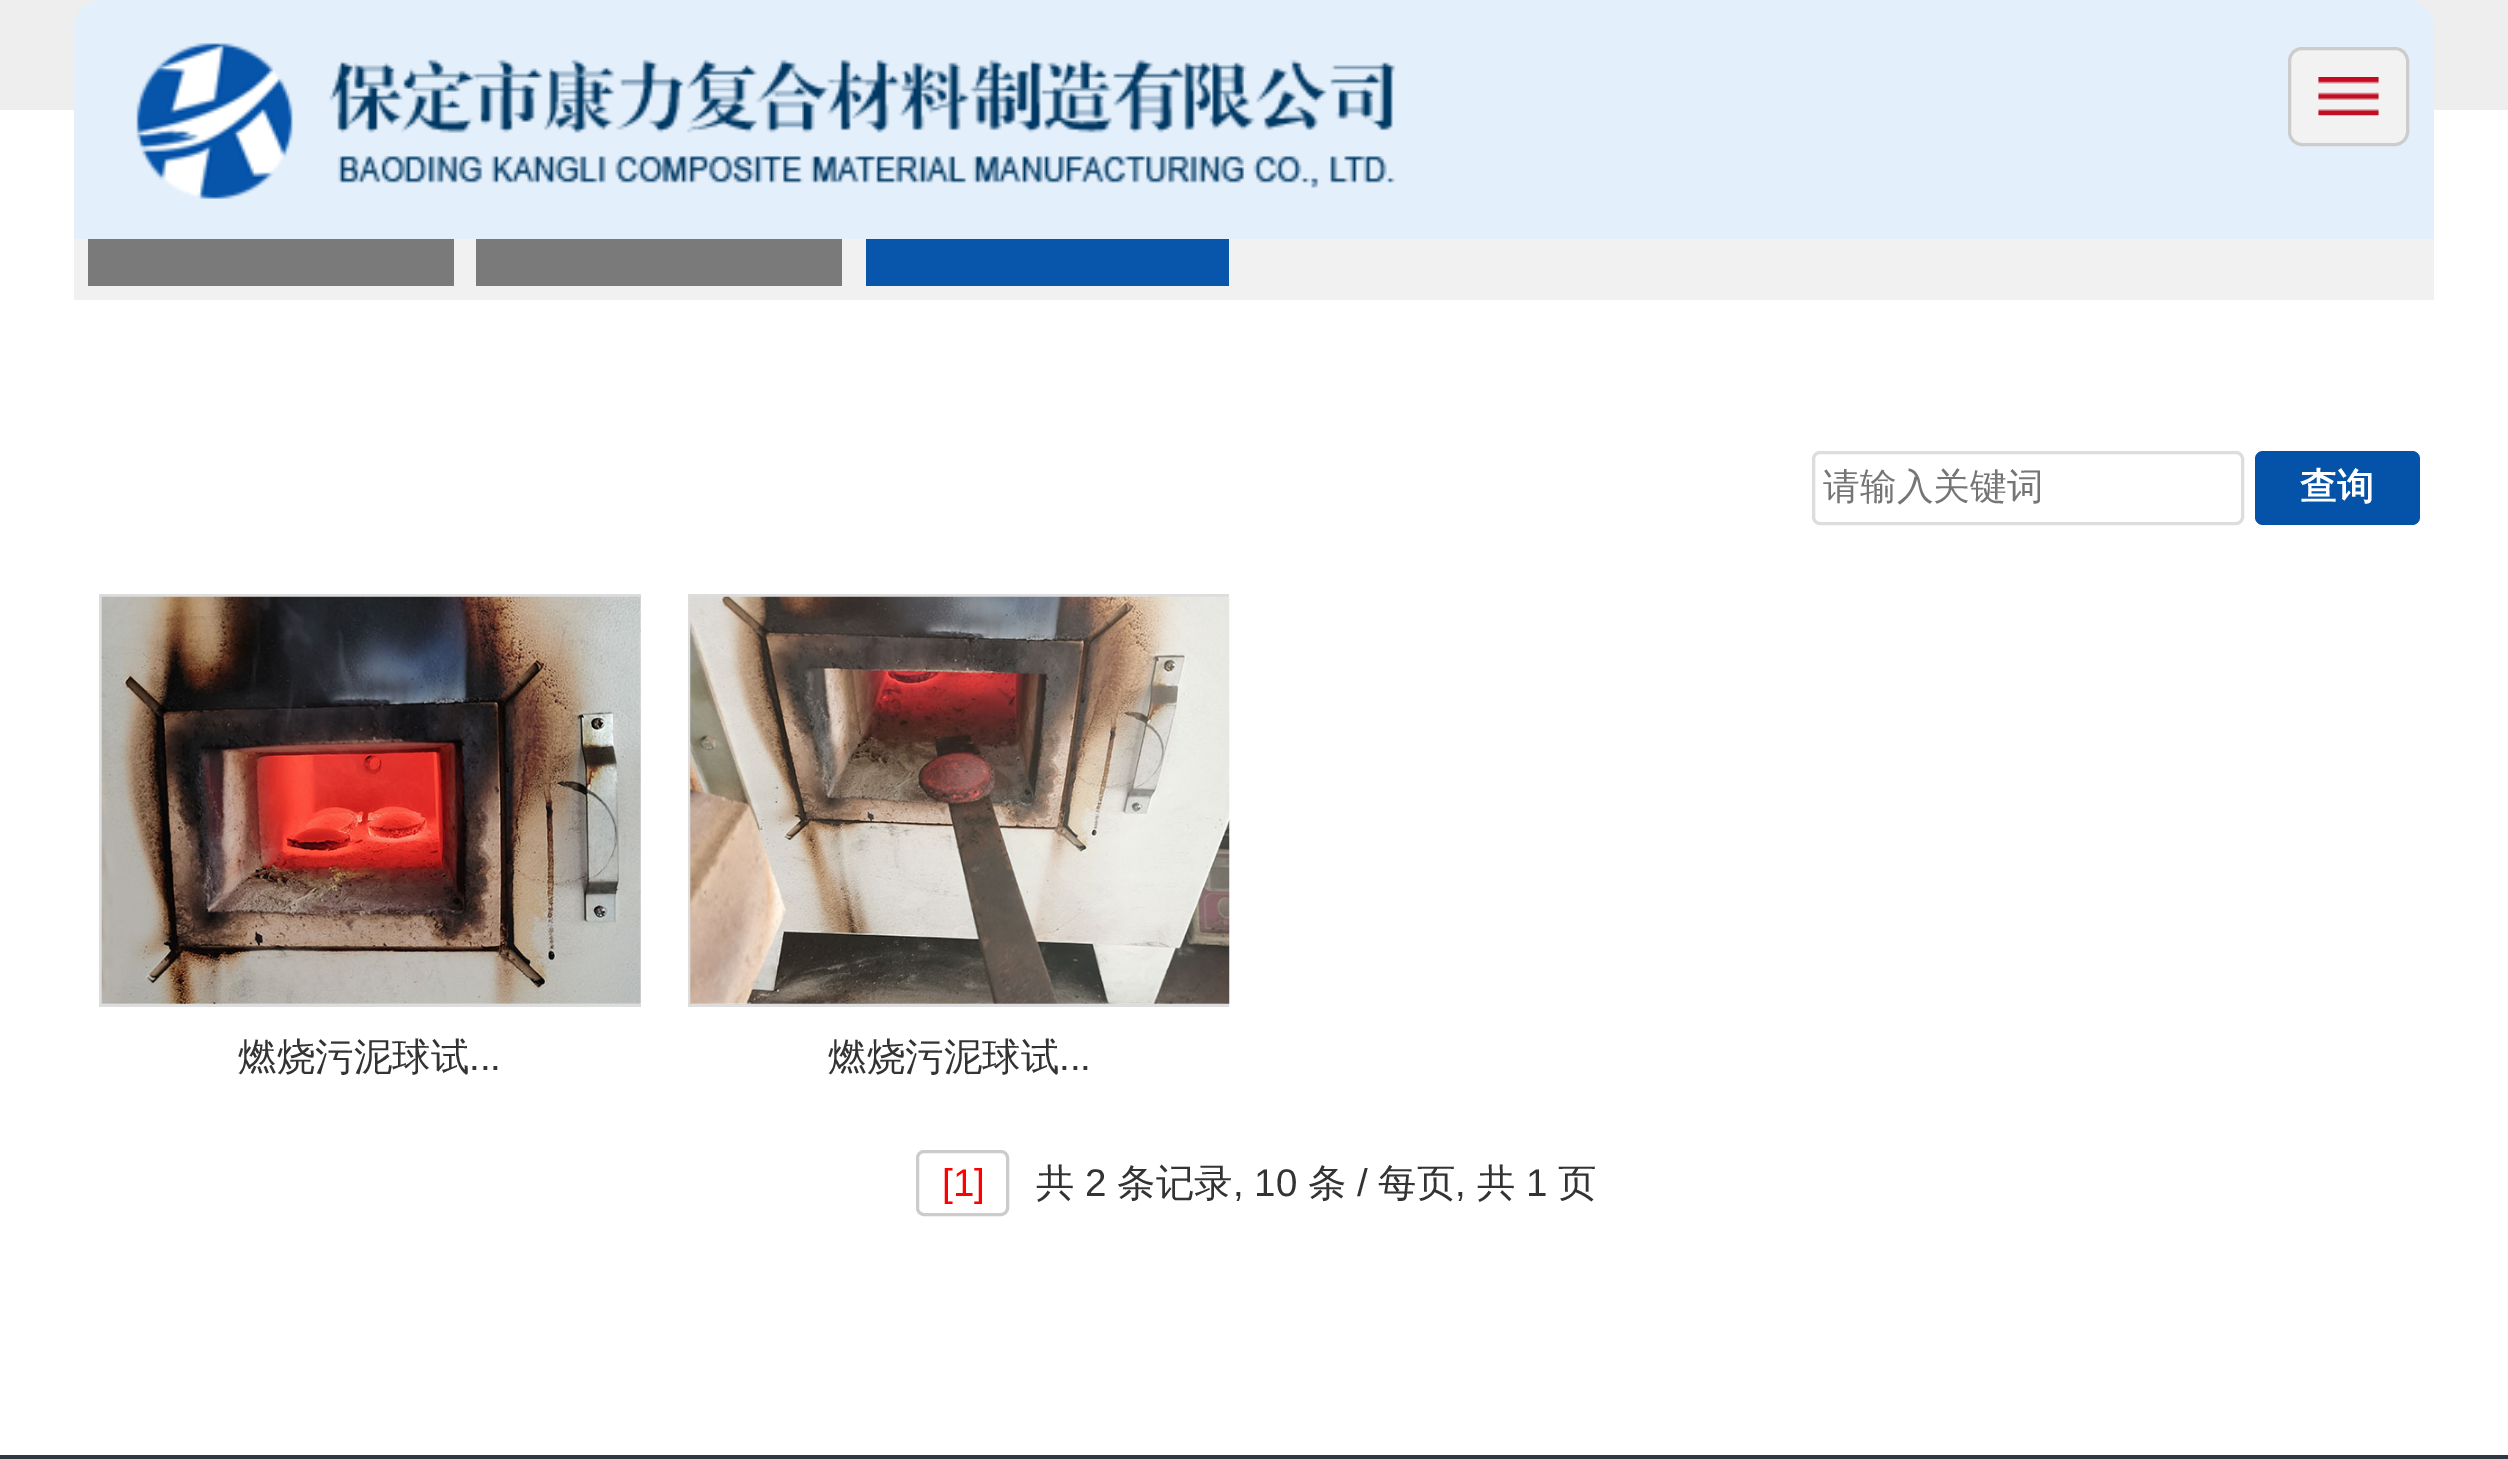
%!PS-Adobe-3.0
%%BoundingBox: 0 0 2508 1459
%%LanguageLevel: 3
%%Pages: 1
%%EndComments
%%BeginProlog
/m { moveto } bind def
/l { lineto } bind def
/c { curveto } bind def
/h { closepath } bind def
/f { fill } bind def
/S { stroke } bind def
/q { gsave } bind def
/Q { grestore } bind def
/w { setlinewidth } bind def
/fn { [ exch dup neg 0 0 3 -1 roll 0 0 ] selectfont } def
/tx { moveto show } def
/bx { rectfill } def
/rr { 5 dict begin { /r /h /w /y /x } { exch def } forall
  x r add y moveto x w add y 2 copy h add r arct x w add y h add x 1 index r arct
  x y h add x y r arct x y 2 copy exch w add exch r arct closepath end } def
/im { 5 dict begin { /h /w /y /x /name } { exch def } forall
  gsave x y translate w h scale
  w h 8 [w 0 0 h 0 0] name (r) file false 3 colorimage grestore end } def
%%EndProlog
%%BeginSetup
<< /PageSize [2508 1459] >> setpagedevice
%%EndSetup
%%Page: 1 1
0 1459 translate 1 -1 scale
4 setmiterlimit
1 setgray
0 0 2508 1459 bx
0.933 setgray
0 0 2508 110 bx
0.89 0.937 0.984 setrgbcolor
102 0 m 2406 0 l 2421.5 0 2434 12.5 2434 28 c 2434 239 l 74 239 l 74 28 l 74 12.5 86.5 0 102 0 c h f
(image0.raw) 136 43 1260 156 im
0.949 setgray
2289.5 48.5 118 96 12.5 rr q f Q
0.8 setgray
3 w
S
(image1.raw) 2318 77 61 39 im
0.945 setgray
74 239 2360 61 bx
0.478 setgray
88 239 366 47 bx
476 239 366 47 bx
0.027 0.337 0.671 setrgbcolor
866 239 363 47 bx
0.867 setgray
1813.5 452.5 429 71 6.5 rr S
/WenQuanYiZenHei-Medium 36.75 fn
0.459 setgray
(请输入关键词) 1823 499 tx
0.016 0.325 0.659 setrgbcolor
2255 451 165 74 8 rr f
/WenQuanYiZenHei-Bold 36.75 fn
1 setgray
(查询) 2300 499 tx
q
99 594 542 413 rectclip
0.867 setgray
100.5 595.5 544 410 rectstroke
Q
(image2.raw) 101 596 540 408 im
/WenQuanYiZenHei-Medium 38.5 fn
0.2 setgray
(燃烧污泥球试) 238 1070 tx
/LiberationSans-Regular 38.5 fn
(...) 469 1070 tx
q
688 594 541 413 rectclip
0.867 setgray
689.5 595.5 544 410 rectstroke
Q
(image3.raw) 690 596 540 408 im
/WenQuanYiZenHei-Medium 38.5 fn
(燃烧污泥球试) 828 1070 tx
/LiberationSans-Regular 38.5 fn
(...) 1059 1070 tx
0.8 setgray
917.5 1151.5 90 63 6.5 rr S
1 0 0 setrgbcolor
([1]) 942 1196 tx
/WenQuanYiZenHei-Medium 38.5 fn
0.2 setgray
(共) 1036 1196 tx
/LiberationSans-Regular 38.5 fn
(2) 1085 1196 tx
/WenQuanYiZenHei-Medium 38.5 fn
(条记录) 1117 1196 tx
/LiberationSans-Regular 38.5 fn
(, 10) 1233 1196 tx
/WenQuanYiZenHei-Medium 38.5 fn
(条) 1308 1196 tx
/LiberationSans-Regular 38.5 fn
(/) 1357 1196 tx
/WenQuanYiZenHei-Medium 38.5 fn
(每页) 1378 1196 tx
/LiberationSans-Regular 38.5 fn
(,) 1455 1196 tx
/WenQuanYiZenHei-Medium 38.5 fn
(共) 1477 1196 tx
/LiberationSans-Regular 38.5 fn
(1) 1526 1196 tx
/WenQuanYiZenHei-Medium 38.5 fn
(页) 1558 1196 tx
0.184 0.22 0.255 setrgbcolor
0 1455 2508 4 bx
showpage
%%EOF
